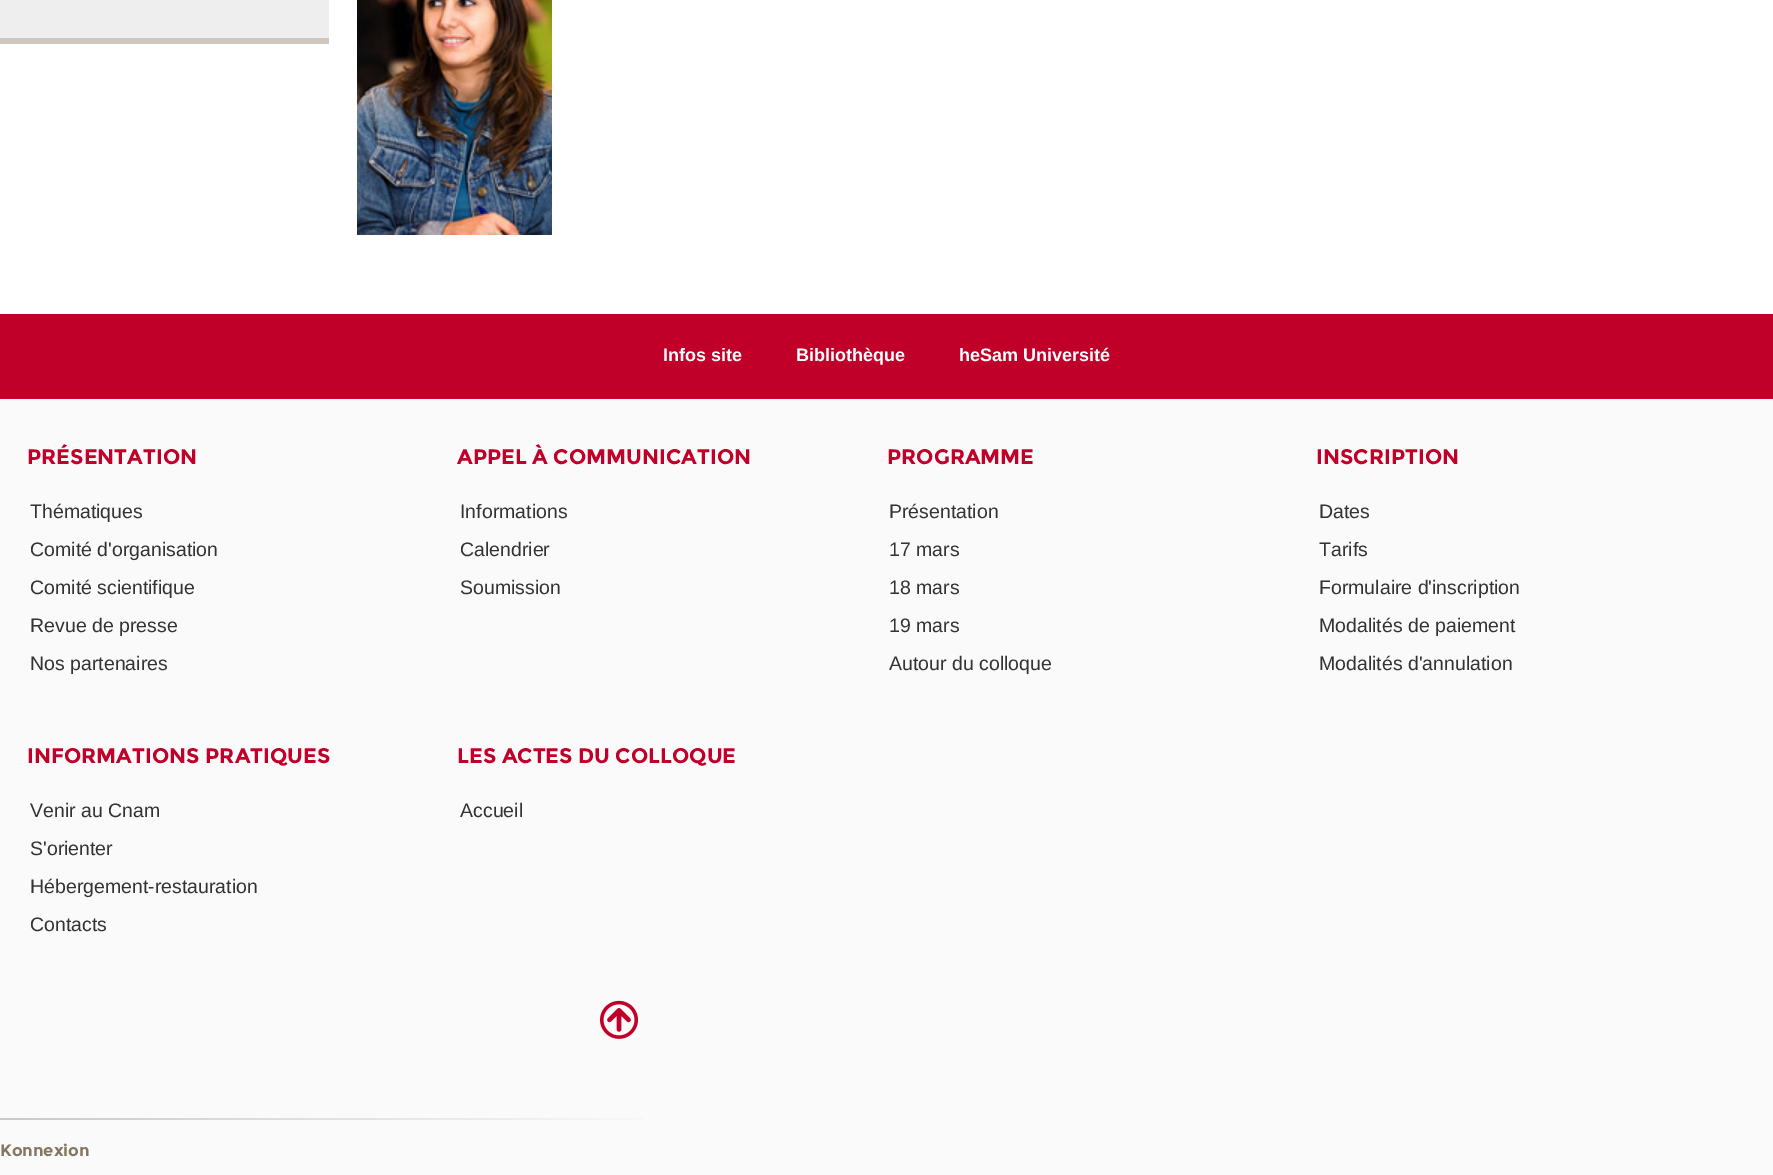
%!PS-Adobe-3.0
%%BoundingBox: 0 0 1773 1175
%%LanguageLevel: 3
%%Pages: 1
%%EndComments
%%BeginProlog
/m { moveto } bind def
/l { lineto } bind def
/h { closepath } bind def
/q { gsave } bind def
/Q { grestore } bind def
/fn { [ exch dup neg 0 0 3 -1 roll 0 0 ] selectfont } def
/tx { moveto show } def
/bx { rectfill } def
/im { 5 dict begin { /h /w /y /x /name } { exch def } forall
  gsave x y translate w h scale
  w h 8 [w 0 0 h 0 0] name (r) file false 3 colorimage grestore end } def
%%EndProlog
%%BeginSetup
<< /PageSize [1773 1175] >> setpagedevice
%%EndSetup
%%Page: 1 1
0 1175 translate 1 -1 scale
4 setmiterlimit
0.98 setgray
0 0 1773 1175 bx
1 setgray
0 0 1773 314 bx
0.933 setgray
0 0 329 38 bx
0.812 0.784 0.753 setrgbcolor
0 38 329 6 bx
(image0.raw) 357 0 195 235 im
0.757 0 0.165 setrgbcolor
0 314 1773 85 bx
/LiberationSans-Bold 18 fn
1 setgray
(Infos site) 663 361 tx
(Bibliothèque) 796 361 tx
(heSam Université) 959 361 tx
/Montserrat-Bold 21 fn
0.757 0 0.165 setrgbcolor
(PRÉSENTATION) 27 464 tx
/LiberationSans-Regular 19.5 fn
0.2 setgray
(Thématiques) 30 518 tx
(Comité d'organisation) 30 556 tx
(Comité scientifique) 30 594 tx
(Revue de presse) 30 632 tx
(Nos partenaires) 30 670 tx
/Montserrat-Bold 21 fn
0.757 0 0.165 setrgbcolor
(APPEL À COMMUNICATION) 457 464 tx
/LiberationSans-Regular 19.5 fn
0.2 setgray
(Informations) 460 518 tx
(Calendrier) 460 556 tx
(Soumission) 460 594 tx
/Montserrat-Bold 21 fn
0.757 0 0.165 setrgbcolor
(PROGRAMME) 887 464 tx
/LiberationSans-Regular 19.5 fn
0.2 setgray
(Présentation) 889 518 tx
(17 mars) 889 556 tx
(18 mars) 889 594 tx
(19 mars) 889 632 tx
(Autour du colloque) 889 670 tx
/Montserrat-Bold 21 fn
0.757 0 0.165 setrgbcolor
(INSCRIPTION) 1316 464 tx
/LiberationSans-Regular 19.5 fn
0.2 setgray
(Dates) 1319 518 tx
(Tarifs) 1319 556 tx
(Formulaire d'inscription) 1319 594 tx
(Modalités de paiement) 1319 632 tx
(Modalités d'annulation) 1319 670 tx
/Montserrat-Bold 21 fn
0.757 0 0.165 setrgbcolor
(INFORMATIONS PRATIQUES) 27 763 tx
/LiberationSans-Regular 19.5 fn
0.2 setgray
(Venir au Cnam) 30 817 tx
(S'orienter) 30 855 tx
(Hébergement-restauration) 30 893 tx
(Contacts) 30 931 tx
/Montserrat-Bold 21 fn
0.757 0 0.165 setrgbcolor
(LES ACTES DU COLLOQUE) 457 763 tx
/LiberationSans-Regular 19.5 fn
0.2 setgray
(Accueil) 460 817 tx
(image1.raw) 600 1000 38 39 im
q 0 1118 m 645 1118 l 645 1120 l 0 1120 l h clip newpath
<< /ShadingType 2 /ColorSpace /DeviceRGB /Coords [0 1118 674 1118] /Extend [true true] /Function << /FunctionType 2 /Domain [0 1] /C0 [0.812 0.784 0.753] /C1 [0.98 0.98 0.98] /N 1 >> >> shfill Q
/Montserrat-Bold 16.5 fn
0.522 0.467 0.38 setrgbcolor
(Konnexion) 0 1156 tx
showpage
%%EOF
